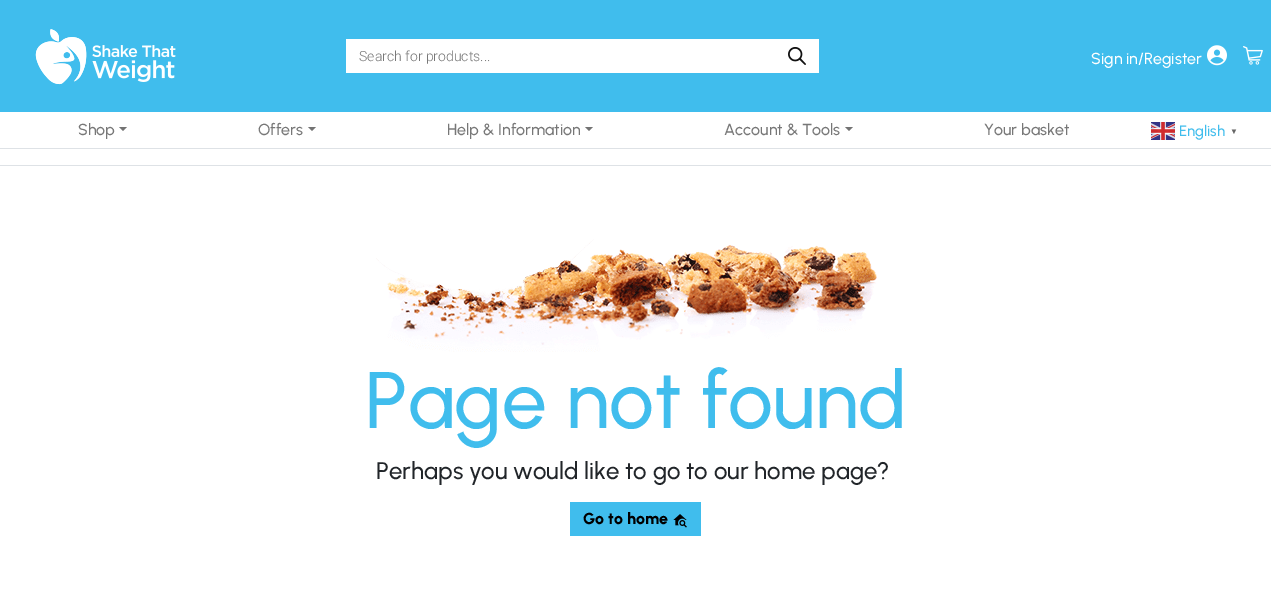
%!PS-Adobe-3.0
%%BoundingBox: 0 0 1271 596
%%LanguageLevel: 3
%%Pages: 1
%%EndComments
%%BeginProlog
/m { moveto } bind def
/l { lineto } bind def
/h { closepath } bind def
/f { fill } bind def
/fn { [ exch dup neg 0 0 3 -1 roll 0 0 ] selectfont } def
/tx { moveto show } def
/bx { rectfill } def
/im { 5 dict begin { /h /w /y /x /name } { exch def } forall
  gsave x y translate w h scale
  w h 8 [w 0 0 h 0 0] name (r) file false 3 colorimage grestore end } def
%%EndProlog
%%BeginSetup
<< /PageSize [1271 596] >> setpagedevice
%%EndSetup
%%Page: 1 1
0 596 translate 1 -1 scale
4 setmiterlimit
1 setgray
0 0 1271 596 bx
0.251 0.741 0.929 setrgbcolor
0 0 1271 112 bx
(image0.raw) 35 29 141 56 im
1 setgray
346 39 473 34 bx
/Roboto-Light 14 fn
0.467 setgray
(Search for products...) 359 61 tx
(image1.raw) 788 47 18 18 im
/Urbanist-Medium 16 fn
1 setgray
(Sign in/Register) 1091 64 tx
(image2.raw) 1207 45 20 21 im
(image3.raw) 1243 46 20 19 im
0.871 0.886 0.902 setrgbcolor
0 148 1271 1 bx
0.467 setgray
(Shop) 78 135 tx
0.451 setgray
119 127 m 127 127 l 123 131 l h f
0.467 setgray
(Offers) 258 135 tx
0.451 setgray
308 127 m 316 127 l 312 131 l h f
0.467 setgray
(Help & Information) 447 135 tx
0.451 setgray
585 127 m 593 127 l 589 131 l h f
0.467 setgray
(Account & Tools) 724 135 tx
0.451 setgray
845 127 m 853 127 l 849 131 l h f
0.467 setgray
(Your basket) 984 135 tx
(image4.raw) 1151 122 24 18 im
/Urbanist-Medium 15 fn
0.251 0.741 0.929 setrgbcolor
(English) 1179 136 tx
/LiberationSans-Bold 8 fn
0.4 setgray
(▼) 1230 134 tx
0.871 0.886 0.902 setrgbcolor
0 165 1271 1 bx
(image5.raw) 376 239 501 113 im
/Urbanist-Medium 80 fn
0.251 0.741 0.929 setrgbcolor
(Page not found) 365 428 tx
/Urbanist-Medium 24 fn
0.129 0.145 0.161 setrgbcolor
(Perhaps you would like to go to our home page?) 376 479 tx
0.251 0.741 0.929 setrgbcolor
570 502 131 34 bx
/Urbanist-ExtraBold 16 fn
0 setgray
(Go to home) 583 524 tx
(image6.raw) 673 514 14 14 im
showpage
%%EOF
